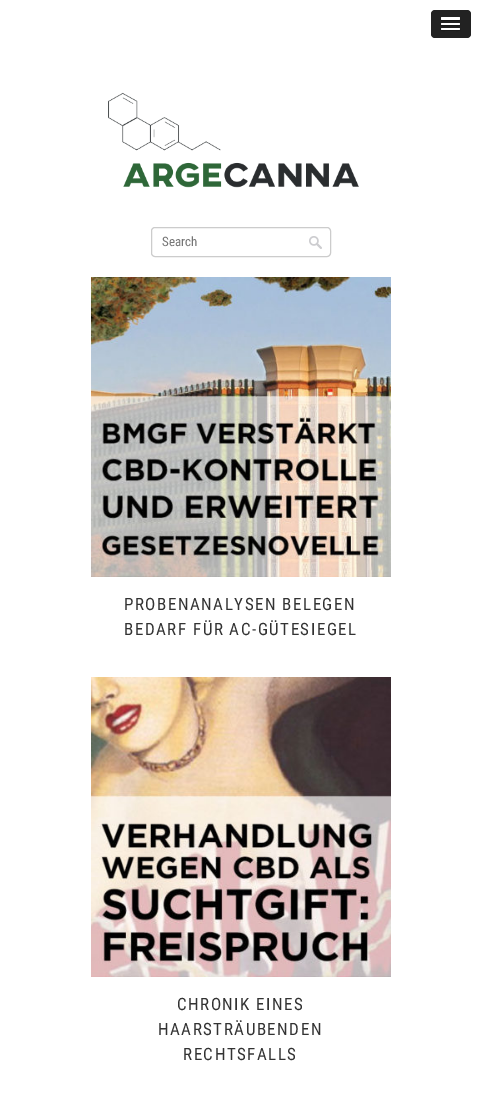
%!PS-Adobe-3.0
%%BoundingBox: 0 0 481 1097
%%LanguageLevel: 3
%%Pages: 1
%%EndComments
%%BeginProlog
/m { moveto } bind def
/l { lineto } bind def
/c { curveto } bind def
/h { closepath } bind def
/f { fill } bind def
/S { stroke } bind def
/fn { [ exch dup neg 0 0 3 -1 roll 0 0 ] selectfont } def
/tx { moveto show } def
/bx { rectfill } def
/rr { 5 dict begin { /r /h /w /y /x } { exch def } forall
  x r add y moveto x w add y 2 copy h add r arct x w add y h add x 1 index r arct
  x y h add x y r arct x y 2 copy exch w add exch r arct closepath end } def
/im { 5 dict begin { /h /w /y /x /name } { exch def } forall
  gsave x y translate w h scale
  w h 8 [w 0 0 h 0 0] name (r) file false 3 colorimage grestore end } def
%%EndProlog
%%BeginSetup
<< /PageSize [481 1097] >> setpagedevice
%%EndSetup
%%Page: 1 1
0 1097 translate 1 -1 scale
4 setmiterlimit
1 setgray
0 0 481 1097 bx
0.133 setgray
431 10 40 28 4 rr f
0.102 setgray
441 19 m 441 21.5 442 21 445 21 c 456 21 l 459 21 460 21.5 460 19 c 460 19.5 459.5 20 459 20 c 442 20 l 441.5 20 441 19.5 441 19 c h f
1 setgray
441 17 19 3 1 rr f
0.102 setgray
441 24.5 m 440 26.5 445 26 445 26 c 456 26 l 456 26 461 26.5 460 24.5 c 459 25 l 442 25 l h f
1 setgray
441 23 19 2 1 rr f
0.102 setgray
441 29.5 m 440 31.5 445 31 445 31 c 456 31 l 456 31 461 31.5 460 29.5 c 459 30 l 442 30 l h f
1 setgray
441 28 19 2 1 rr f
(image0.raw) 108 92 251 96 im
0.8 setgray
151.5 227.5 179 29 3.5 rr S
/RobotoCondensed-Regular 13 fn
0.459 setgray
(Search) 162 246 tx
(image1.raw) 309 236 13 13 im
(image2.raw) 91 277 300 300 im
/RobotoCondensed-Regular 17 fn
0.2 setgray
124 610 m 1.5 0 (PROBENANALYSEN BELEGEN) ashow
124 635 m 1.5 0 (BEDARF FÜR AC-GÜTESIEGEL) ashow
(image3.raw) 91 677 300 300 im
177 1010 m 1.5 0 (CHRONIK EINES) ashow
158 1035 m 1.5 0 (HAARSTRÄUBENDEN) ashow
183 1060 m 1.5 0 (RECHTSFALLS) ashow
showpage
%%EOF
